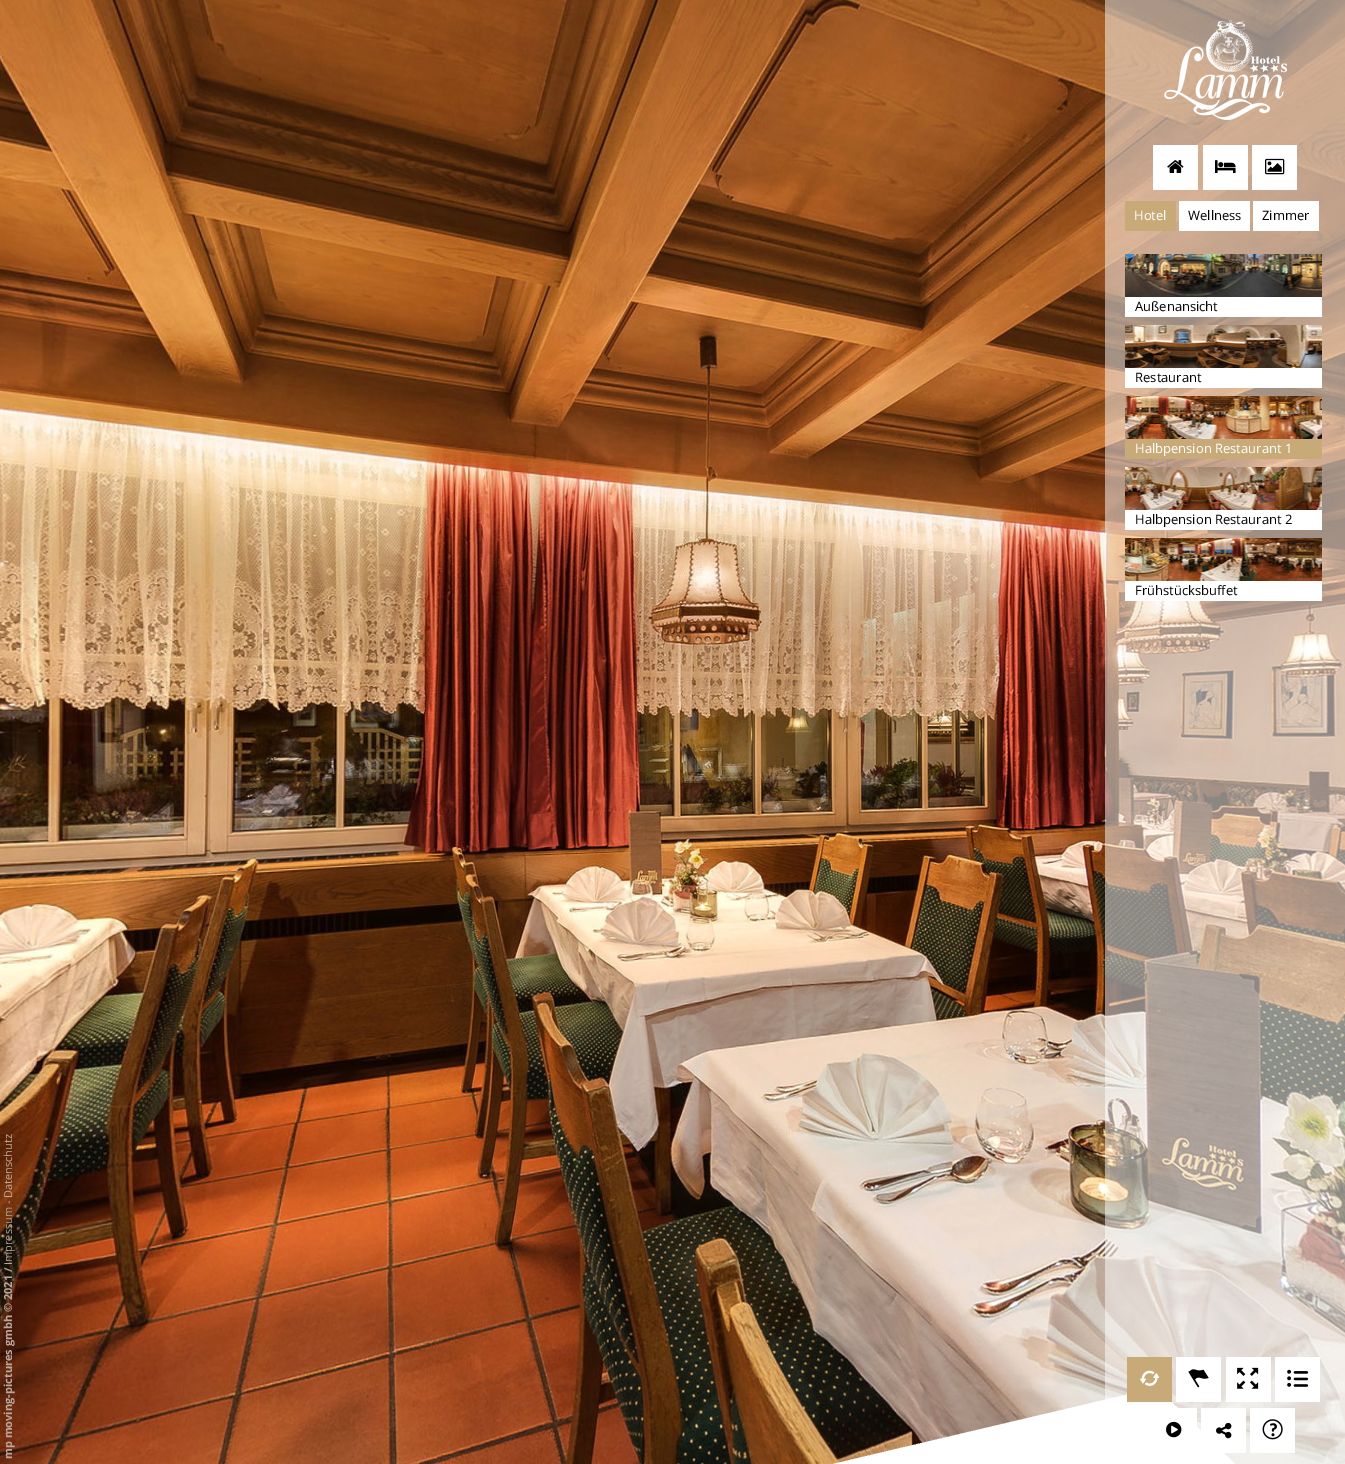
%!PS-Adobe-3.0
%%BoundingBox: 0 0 1345 1464
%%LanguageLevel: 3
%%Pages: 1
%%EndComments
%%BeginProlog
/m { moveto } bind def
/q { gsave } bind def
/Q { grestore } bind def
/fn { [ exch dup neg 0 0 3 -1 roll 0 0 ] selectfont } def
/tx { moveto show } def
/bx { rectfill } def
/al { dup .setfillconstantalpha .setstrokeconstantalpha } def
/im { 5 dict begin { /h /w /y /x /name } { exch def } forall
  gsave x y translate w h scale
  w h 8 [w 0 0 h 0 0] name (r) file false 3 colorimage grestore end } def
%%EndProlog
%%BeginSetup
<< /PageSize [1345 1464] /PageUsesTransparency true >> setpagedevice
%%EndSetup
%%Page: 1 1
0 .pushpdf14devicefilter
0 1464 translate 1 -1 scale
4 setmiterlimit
1 setgray
0 0 1345 1464 bx
(image0.raw) 0 0 1345 1464 im
0.5 al
1105 0 240 1464 bx
1 al
(image1.raw) 1164 20 123 100 im
1153 145 45 45 bx
(image2.raw) 1167 160 17 13 im
1203 145 45 45 bx
(image3.raw) 1215 160 21 13 im
1252 145 45 45 bx
(image4.raw) 1265 158 20 17 im
0.784 0.667 0.475 setrgbcolor
1125 201 51 30 bx
/OpenSans-Regular 13 fn
1 setgray
(Hotel) 1134 220 tx
1179 201 71 30 bx
0 setgray
(Wellness) 1188 220 tx
1 setgray
1253 201 66 30 bx
0 setgray
(Zimmer) 1262 220 tx
(image5.raw) 1125 254 197 43 im
1 setgray
1125 297 197 20 bx
0 setgray
(Außenansicht) 1135 311 tx
(image6.raw) 1125 325 197 43 im
1 setgray
1125 368 197 20 bx
0 setgray
(Restaurant) 1135 382 tx
(image7.raw) 1125 396 197 43 im
0.784 0.667 0.475 setrgbcolor
1125 439 197 20 bx
1 setgray
(Halbpension Restaurant 1) 1135 453 tx
(image8.raw) 1125 467 197 43 im
1125 510 197 20 bx
0 setgray
(Halbpension Restaurant 2) 1135 524 tx
(image9.raw) 1125 538 197 43 im
1 setgray
1125 581 197 20 bx
0 setgray
(Frühstücksbuffet) 1135 595 tx
0.784 0.667 0.475 setrgbcolor
1127 1357 45 45 bx
(image10.raw) 1140 1370 20 16 im
1 setgray
1176 1357 45 45 bx
(image11.raw) 1188 1369 21 19 im
1226 1357 45 45 bx
(image12.raw) 1237 1367 22 22 im
1275 1357 45 45 bx
(image13.raw) 1287 1369 22 18 im
1178 1408 19 19 bx
(image14.raw) 1166 1421 16 17 im
1201 1408 45 45 bx
(image15.raw) 1216 1422 16 17 im
1250 1408 45 45 bx
(image16.raw) 1262 1419 21 21 im
/OpenSans-Regular 11 fn
0.765 0.667 0.616 setrgbcolor
q 12 1198 translate -90 rotate 0 0 m (Datenschutz) show Q
0.788 0.678 0.624 setrgbcolor
q 12 1204 translate -90 rotate 0 0 m (-) show Q
0.686 0.651 0.624 setrgbcolor
q 12 1265 translate -90 rotate 0 0 m (Impressum) show Q
/OpenSans-Bold 11 fn
0.643 0.635 0.616 setrgbcolor
q 12 1272 translate -90 rotate 0 0 m (/) show Q
0.733 0.655 0.62 setrgbcolor
q 12 1459 translate -90 rotate 0 0 m (mp moving-pictures gmbh © 2021) show Q
.poppdf14devicefilter showpage
%%EOF
